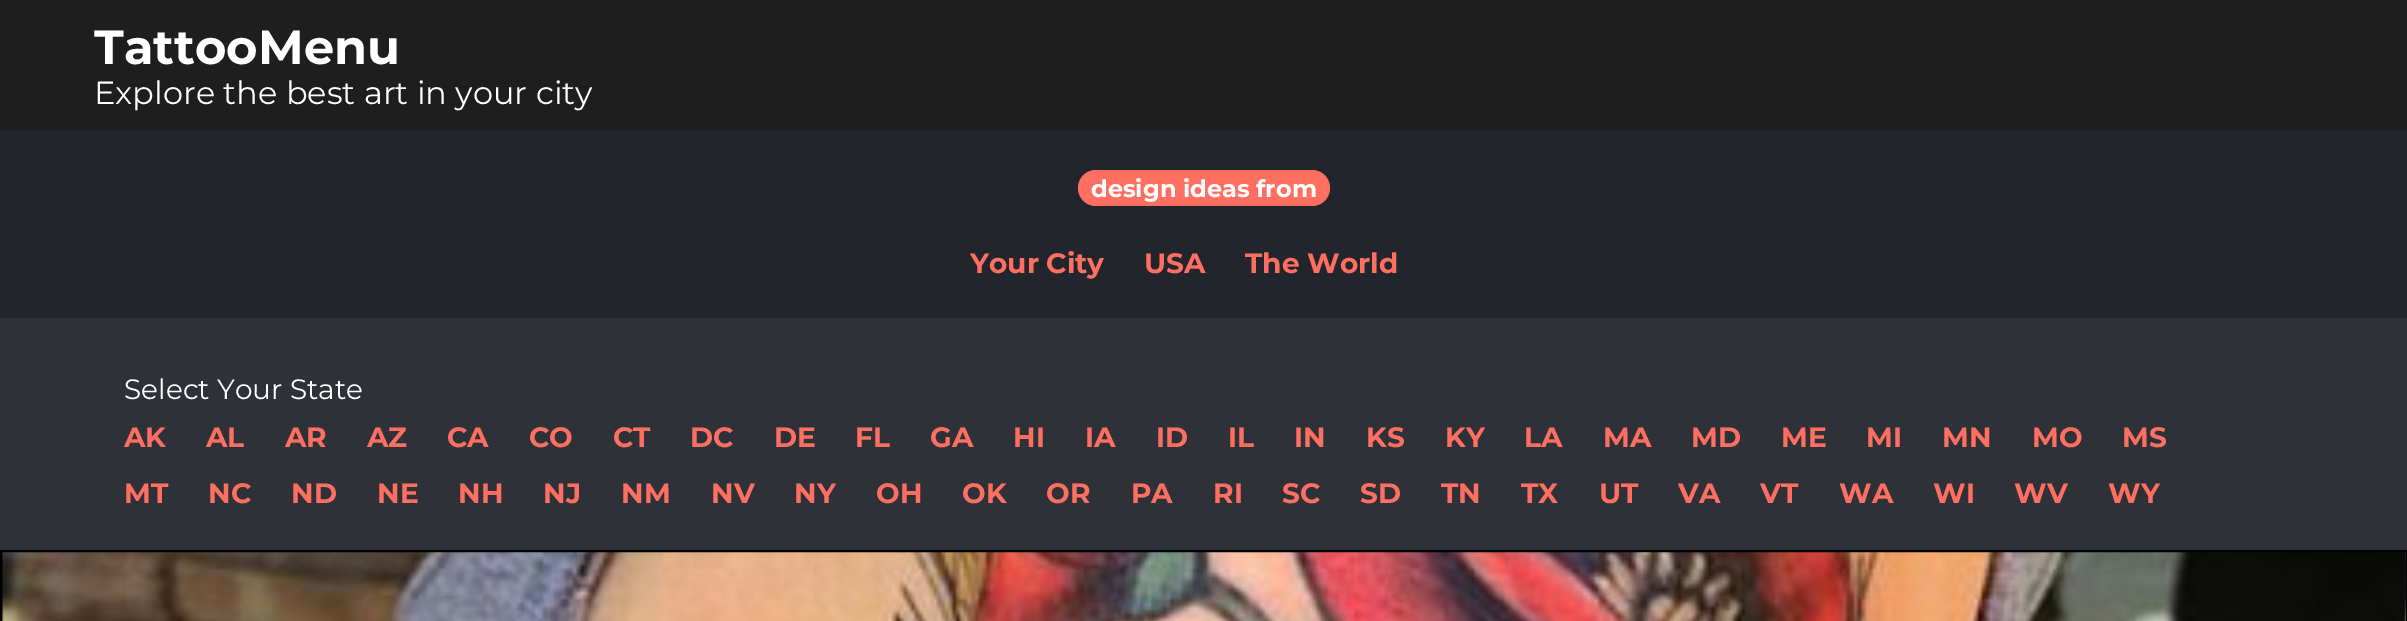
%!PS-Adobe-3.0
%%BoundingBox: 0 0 2407 621
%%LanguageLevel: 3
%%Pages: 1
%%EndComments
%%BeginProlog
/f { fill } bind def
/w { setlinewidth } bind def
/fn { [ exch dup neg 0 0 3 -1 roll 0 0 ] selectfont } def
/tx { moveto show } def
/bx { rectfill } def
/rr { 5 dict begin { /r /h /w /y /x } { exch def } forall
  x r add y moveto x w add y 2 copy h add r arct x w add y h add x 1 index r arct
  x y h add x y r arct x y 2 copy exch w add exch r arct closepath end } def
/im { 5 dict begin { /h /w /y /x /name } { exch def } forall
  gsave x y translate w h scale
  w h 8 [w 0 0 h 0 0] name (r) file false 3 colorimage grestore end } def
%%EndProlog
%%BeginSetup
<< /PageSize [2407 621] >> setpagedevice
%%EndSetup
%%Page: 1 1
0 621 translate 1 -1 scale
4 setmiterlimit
1 setgray
0 0 2407 621 bx
0.118 setgray
0 0 2407 130 bx
/Montserrat-Bold 48 fn
1 setgray
(TattooMenu) 94 64 tx
/Montserrat-Regular 32 fn
(Explore the best art in your city) 94 104 tx
0.133 0.149 0.173 setrgbcolor
0 130 2407 188 bx
1 0.435 0.38 setrgbcolor
1078 170 252 36 18 rr f
/Montserrat-Bold 24 fn
1 setgray
(design ideas from) 1091 197 tx
/Montserrat-Bold 28 fn
1 0.435 0.38 setrgbcolor
(Your City) 970 273 tx
(USA) 1144 273 tx
(The World) 1245 273 tx
0.18 0.196 0.22 setrgbcolor
0 318 2407 232 bx
/Montserrat-Regular 28 fn
1 setgray
(Select Your State) 124 399 tx
/Montserrat-Bold 28 fn
1 0.435 0.38 setrgbcolor
(AK) 124 447 tx
(AL) 206 447 tx
(AR) 285 447 tx
(AZ) 367 447 tx
(CA) 447 447 tx
(CO) 529 447 tx
(CT) 613 447 tx
(DC) 690 447 tx
(DE) 774 447 tx
(FL) 855 447 tx
(GA) 930 447 tx
(HI) 1013 447 tx
(IA) 1085 447 tx
(ID) 1156 447 tx
(IL) 1228 447 tx
(IN) 1294 447 tx
(KS) 1366 447 tx
(KY) 1445 447 tx
(LA) 1524 447 tx
(MA) 1603 447 tx
(MD) 1691 447 tx
(ME) 1781 447 tx
(MI) 1866 447 tx
(MN) 1942 447 tx
(MO) 2032 447 tx
(MS) 2122 447 tx
(MT) 124 503 tx
(NC) 208 503 tx
(ND) 291 503 tx
(NE) 377 503 tx
(NH) 458 503 tx
(NJ) 543 503 tx
(NM) 621 503 tx
(NV) 711 503 tx
(NY) 794 503 tx
(OH) 876 503 tx
(OK) 962 503 tx
(OR) 1046 503 tx
(PA) 1131 503 tx
(RI) 1213 503 tx
(SC) 1282 503 tx
(SD) 1360 503 tx
(TN) 1441 503 tx
(TX) 1521 503 tx
(UT) 1599 503 tx
(VA) 1678 503 tx
(VT) 1760 503 tx
(WA) 1839 503 tx
(WI) 1933 503 tx
(WV) 2014 503 tx
(WY) 2108 503 tx
(image0.raw) 2 552 2404 69 im
0 setgray
2 w
1 551 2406 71 rectstroke
showpage
%%EOF
